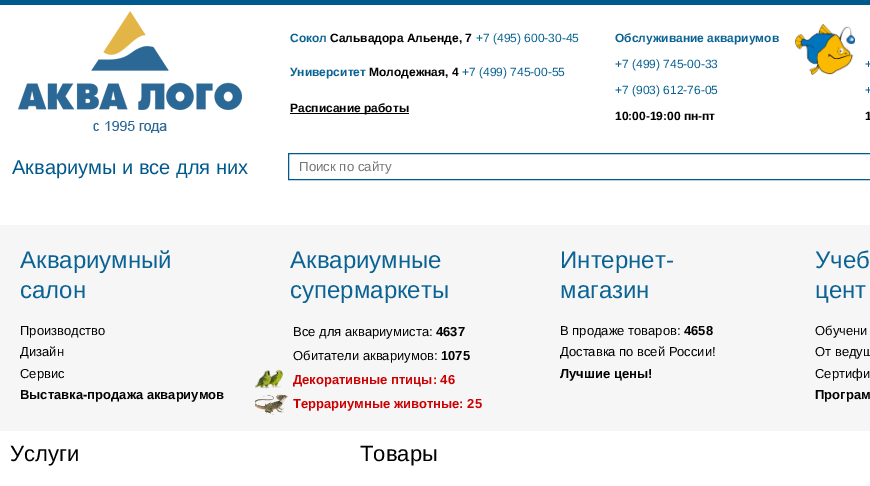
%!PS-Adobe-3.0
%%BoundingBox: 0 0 870 486
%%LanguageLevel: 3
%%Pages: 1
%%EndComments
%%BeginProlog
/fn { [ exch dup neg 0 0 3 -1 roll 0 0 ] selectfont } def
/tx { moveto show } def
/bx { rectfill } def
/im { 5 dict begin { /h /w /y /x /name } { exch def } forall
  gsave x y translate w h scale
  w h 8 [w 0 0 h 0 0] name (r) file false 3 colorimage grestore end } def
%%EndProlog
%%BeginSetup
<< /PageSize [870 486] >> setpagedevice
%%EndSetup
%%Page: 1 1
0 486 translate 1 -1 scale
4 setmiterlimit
0 0.349 0.549 setrgbcolor
0 0 870 486 bx
1 setgray
0 5 870 220 bx
(image0.raw) 18 11 224 122 im
/LiberationSans-Regular 20 fn
0 0.349 0.549 setrgbcolor
(Аквариумы и все для них) 12 174 tx
/LiberationSans-Bold 12 fn
0.043 0.388 0.58 setrgbcolor
(Сокол) 290 42 tx
0 setgray
(Сальвадора Альенде, 7) 330 42 tx
/LiberationSans-Regular 12 fn
0.043 0.388 0.58 setrgbcolor
(+7 \(495\) 600-30-45) 476 42 tx
/LiberationSans-Bold 12 fn
(Университет) 290 76 tx
0 setgray
(Молодежная, 4) 369 76 tx
/LiberationSans-Regular 12 fn
0.043 0.388 0.58 setrgbcolor
(+7 \(499\) 745-00-55) 462 76 tx
0 setgray
290 113 119 1 bx
/LiberationSans-Bold 12 fn
(Расписание работы) 290 112 tx
0.043 0.388 0.58 setrgbcolor
(Обслуживание аквариумов) 615 42 tx
/LiberationSans-Regular 12 fn
(+7 \(499\) 745-00-33) 615 68 tx
(+7 \(903\) 612-76-05) 615 94 tx
/LiberationSans-Bold 12 fn
0 setgray
(10:00-19:00 пн-пт) 615 120 tx
(image1.raw) 795 24 60 51 im
/LiberationSans-Regular 12 fn
0.043 0.388 0.58 setrgbcolor
(+) 865 68 tx
(+) 865 94 tx
/LiberationSans-Bold 12 fn
0 setgray
(1) 865 120 tx
0 0.353 0.553 setrgbcolor
288.5 153.5 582 26 rectstroke
/LiberationSans-Regular 13.25 fn
0.459 setgray
(Поиск по сайту) 299 171 tx
0.965 setgray
0 225 870 206 bx
/LiberationSans-Regular 24 fn
0.043 0.388 0.58 setrgbcolor
(Аквариумный) 20 268 tx
(салон) 20 298 tx
/LiberationSans-Regular 13 fn
0 setgray
(Производство) 20 335 tx
(Дизайн) 20 356 tx
(Сервис) 20 378 tx
/LiberationSans-Bold 13 fn
(Выставка-продажа аквариумов) 20 399 tx
/LiberationSans-Regular 24 fn
0.043 0.388 0.58 setrgbcolor
(Аквариумные) 290 268 tx
(супермаркеты) 290 298 tx
/LiberationSans-Regular 13 fn
0 setgray
(Все для аквариумиста:) 293 336 tx
/LiberationSans-Bold 13 fn
(4637) 436 336 tx
/LiberationSans-Regular 13 fn
(Обитатели аквариумов:) 293 360 tx
/LiberationSans-Bold 13 fn
(1075) 441 360 tx
(image2.raw) 255 369 28 20 im
0.804 0 0.004 setrgbcolor
(Декоративные птицы: 46) 293 384 tx
(image3.raw) 255 394 33 21 im
(Террариумные животные: 25) 293 408 tx
/LiberationSans-Regular 24 fn
0.043 0.388 0.58 setrgbcolor
(Интернет-) 560 268 tx
(магазин) 560 298 tx
/LiberationSans-Regular 13 fn
0 setgray
(В продаже товаров:) 560 335 tx
/LiberationSans-Bold 13 fn
(4658) 684 335 tx
/LiberationSans-Regular 13 fn
(Доставка по всей России!) 560 356 tx
/LiberationSans-Bold 13 fn
(Лучшие цены!) 560 378 tx
/LiberationSans-Regular 24 fn
0.043 0.388 0.58 setrgbcolor
(Учеб) 815 268 tx
(цент) 815 298 tx
/LiberationSans-Regular 13 fn
0 setgray
(Обучени) 815 335 tx
(От ведущ) 815 356 tx
(Сертифи) 815 378 tx
/LiberationSans-Bold 13 fn
(Програм) 815 399 tx
1 setgray
0 431 870 55 bx
/LiberationSans-Regular 22 fn
0 setgray
(Услуги) 10 461 tx
(Товары) 360 461 tx
showpage
%%EOF
